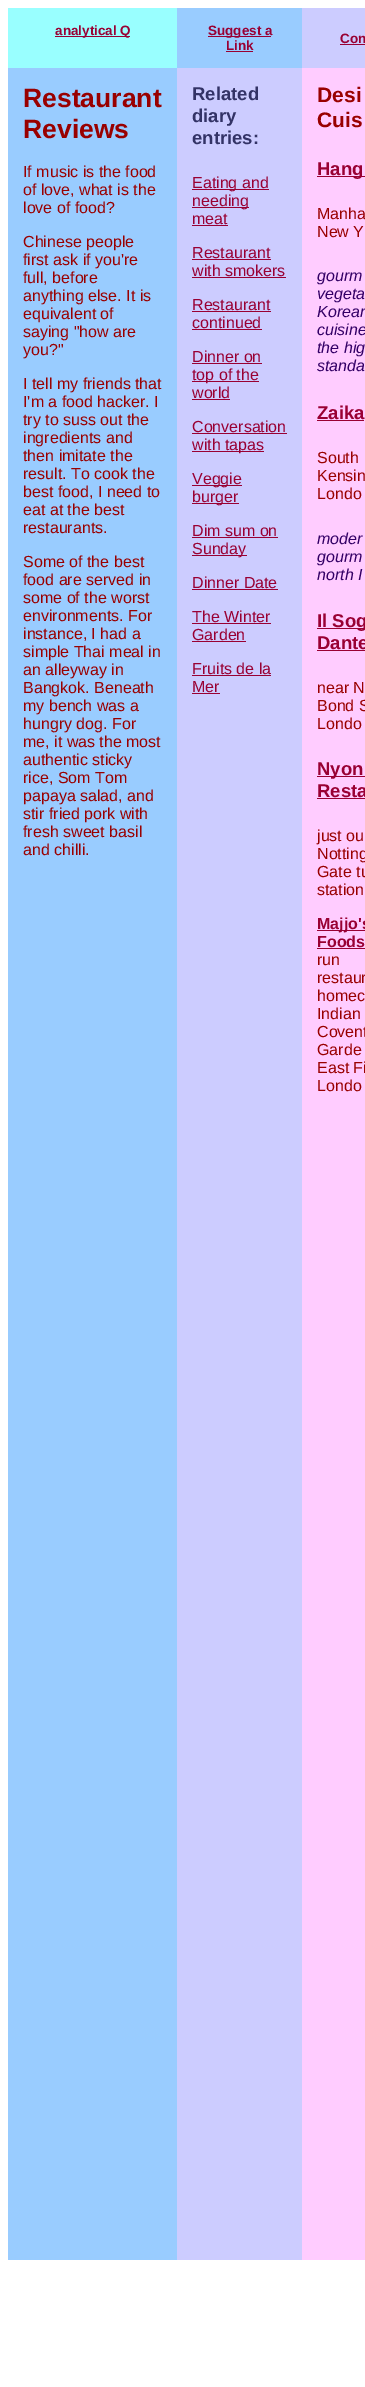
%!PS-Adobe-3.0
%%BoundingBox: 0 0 365 2387
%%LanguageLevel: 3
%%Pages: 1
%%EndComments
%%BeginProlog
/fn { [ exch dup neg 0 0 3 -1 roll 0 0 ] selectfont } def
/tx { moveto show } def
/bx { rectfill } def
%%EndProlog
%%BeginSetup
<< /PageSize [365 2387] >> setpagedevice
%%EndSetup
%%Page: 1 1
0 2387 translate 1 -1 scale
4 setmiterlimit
1 setgray
0 0 365 2387 bx
0.6 1 1 setrgbcolor
8 8 169 60 bx
0.6 0 0.2 setrgbcolor
55 36 75 1 bx
/LiberationSans-Bold 13.5 fn
(analytical Q) 55 35 tx
0.6 0.8 1 setrgbcolor
177 8 125 60 bx
0.6 0 0.2 setrgbcolor
208 36 63 1 bx
(Suggest a) 208 35 tx
(Link) 226 50 tx
226 51 27 1 bx
0.8 0.8 1 setrgbcolor
302 8 63 60 bx
0.6 0 0.2 setrgbcolor
(Con) 340 43 tx
340 44 25 1 bx
0.6 0.8 1 setrgbcolor
8 68 169 2192 bx
/LiberationSans-Bold 26.5 fn
0.6 0 0 setrgbcolor
(Restaurant) 23 107 tx
(Reviews) 23 138 tx
/LiberationSans-Regular 16 fn
(If music is the food) 23 177 tx
(of love, what is the) 23 195 tx
(love of food?) 23 213 tx
(Chinese people) 23 247 tx
(first ask if you're) 23 265 tx
(full, before) 23 283 tx
(anything else. It is) 23 301 tx
(equivalent of) 23 319 tx
(saying "how are) 23 337 tx
(you?") 23 355 tx
(I tell my friends that) 23 389 tx
(I'm a food hacker. I) 23 407 tx
(try to suss out the) 23 425 tx
(ingredients and) 23 443 tx
(then imitate the) 23 461 tx
(result. To cook the) 23 479 tx
(best food, I need to) 23 497 tx
(eat at the best) 23 515 tx
(restaurants.) 23 533 tx
(Some of the best) 23 567 tx
(food are served in) 23 585 tx
(some of the worst) 23 603 tx
(environments. For) 23 621 tx
(instance, I had a) 23 639 tx
(simple Thai meal in) 23 657 tx
(an alleyway in) 23 675 tx
(Bangkok. Beneath) 23 693 tx
(my bench was a) 23 711 tx
(hungry dog. For) 23 729 tx
(me, it was the most) 23 747 tx
(authentic sticky) 23 765 tx
(rice, Som Tom) 23 783 tx
(papaya salad, and) 23 801 tx
(stir fried pork with) 23 819 tx
(fresh sweet basil) 23 837 tx
(and chilli.) 23 855 tx
0.8 0.8 1 setrgbcolor
177 68 125 2192 bx
/LiberationSans-Bold 18.5 fn
0.2 0.2 0.4 setrgbcolor
(Related) 192 100 tx
(diary) 192 122 tx
(entries:) 192 144 tx
0.6 0 0.2 setrgbcolor
192 189 77 1 bx
/LiberationSans-Regular 16 fn
(Eating and) 192 188 tx
192 207 57 1 bx
(needing) 192 206 tx
(meat) 192 224 tx
192 225 36 1 bx
(Restaurant) 192 258 tx
192 259 79 1 bx
(with smokers) 192 276 tx
192 277 94 1 bx
(Restaurant) 192 310 tx
192 311 79 1 bx
(continued) 192 328 tx
192 329 70 1 bx
(Dinner on) 192 362 tx
192 363 70 1 bx
192 381 67 1 bx
(top of the) 192 380 tx
(world) 192 398 tx
192 399 38 1 bx
(Conversation) 192 432 tx
192 433 95 1 bx
192 451 72 1 bx
(with tapas) 192 450 tx
192 485 50 1 bx
(Veggie) 192 484 tx
192 503 47 1 bx
(burger) 192 502 tx
(Dim sum on) 192 536 tx
192 537 86 1 bx
192 555 55 1 bx
(Sunday) 192 554 tx
(Dinner Date) 192 588 tx
192 589 86 1 bx
(The Winter) 192 622 tx
192 623 79 1 bx
(Garden) 192 640 tx
192 641 54 1 bx
(Fruits de la) 192 674 tx
192 675 79 1 bx
(Mer) 192 692 tx
192 693 28 1 bx
1 0.8 1 setrgbcolor
302 68 63 2192 bx
/LiberationSans-Bold 21 fn
0.6 0 0 setrgbcolor
(Desi) 317 102 tx
(Cuis) 317 127 tx
0.6 0 0.2 setrgbcolor
317 176 48 1 bx
/LiberationSans-Bold 18.5 fn
(Hang) 317 175 tx
/LiberationSans-Regular 16 fn
0.6 0 0 setrgbcolor
(Manha) 317 219 tx
(New Y) 317 237 tx
/LiberationSans-Italic 16 fn
0.2 0 0.4 setrgbcolor
(gourm) 317 281 tx
(vegeta) 317 299 tx
(Korean) 317 317 tx
(cuisine) 317 335 tx
(the hig) 317 353 tx
(standa) 317 371 tx
/LiberationSans-Bold 18.5 fn
0.6 0 0.2 setrgbcolor
(Zaika) 317 419 tx
317 420 47 1 bx
/LiberationSans-Regular 16 fn
0.6 0 0 setrgbcolor
(South) 317 463 tx
(Kensin) 317 481 tx
(Londo) 317 499 tx
/LiberationSans-Italic 16 fn
0.2 0 0.4 setrgbcolor
(moder) 317 544 tx
(gourm) 317 562 tx
(north I) 317 580 tx
0.6 0 0.2 setrgbcolor
317 628 48 1 bx
/LiberationSans-Bold 18.5 fn
(Il Sog) 317 627 tx
(Dante) 317 649 tx
317 650 48 1 bx
/LiberationSans-Regular 16 fn
0.6 0 0 setrgbcolor
(near N) 317 693 tx
(Bond S) 317 711 tx
(Londo) 317 729 tx
0.6 0 0.2 setrgbcolor
317 776 48 1 bx
/LiberationSans-Bold 18.5 fn
(Nyon) 317 775 tx
(Resta) 317 797 tx
317 798 48 1 bx
/LiberationSans-Regular 16 fn
0.6 0 0 setrgbcolor
(just ou) 317 841 tx
(Notting) 317 859 tx
(Gate tu) 317 877 tx
(station) 317 895 tx
0.6 0 0.2 setrgbcolor
317 930 48 1 bx
/LiberationSans-Bold 16 fn
(Majjo's) 317 929 tx
(Foods) 317 947 tx
317 948 48 1 bx
/LiberationSans-Regular 16 fn
0.6 0 0 setrgbcolor
(run) 317 965 tx
(restaur) 317 983 tx
(homec) 317 1001 tx
(Indian) 317 1019 tx
(Covent) 317 1037 tx
(Garde) 317 1055 tx
(East Fi) 317 1073 tx
(Londo) 317 1091 tx
showpage
%%EOF
